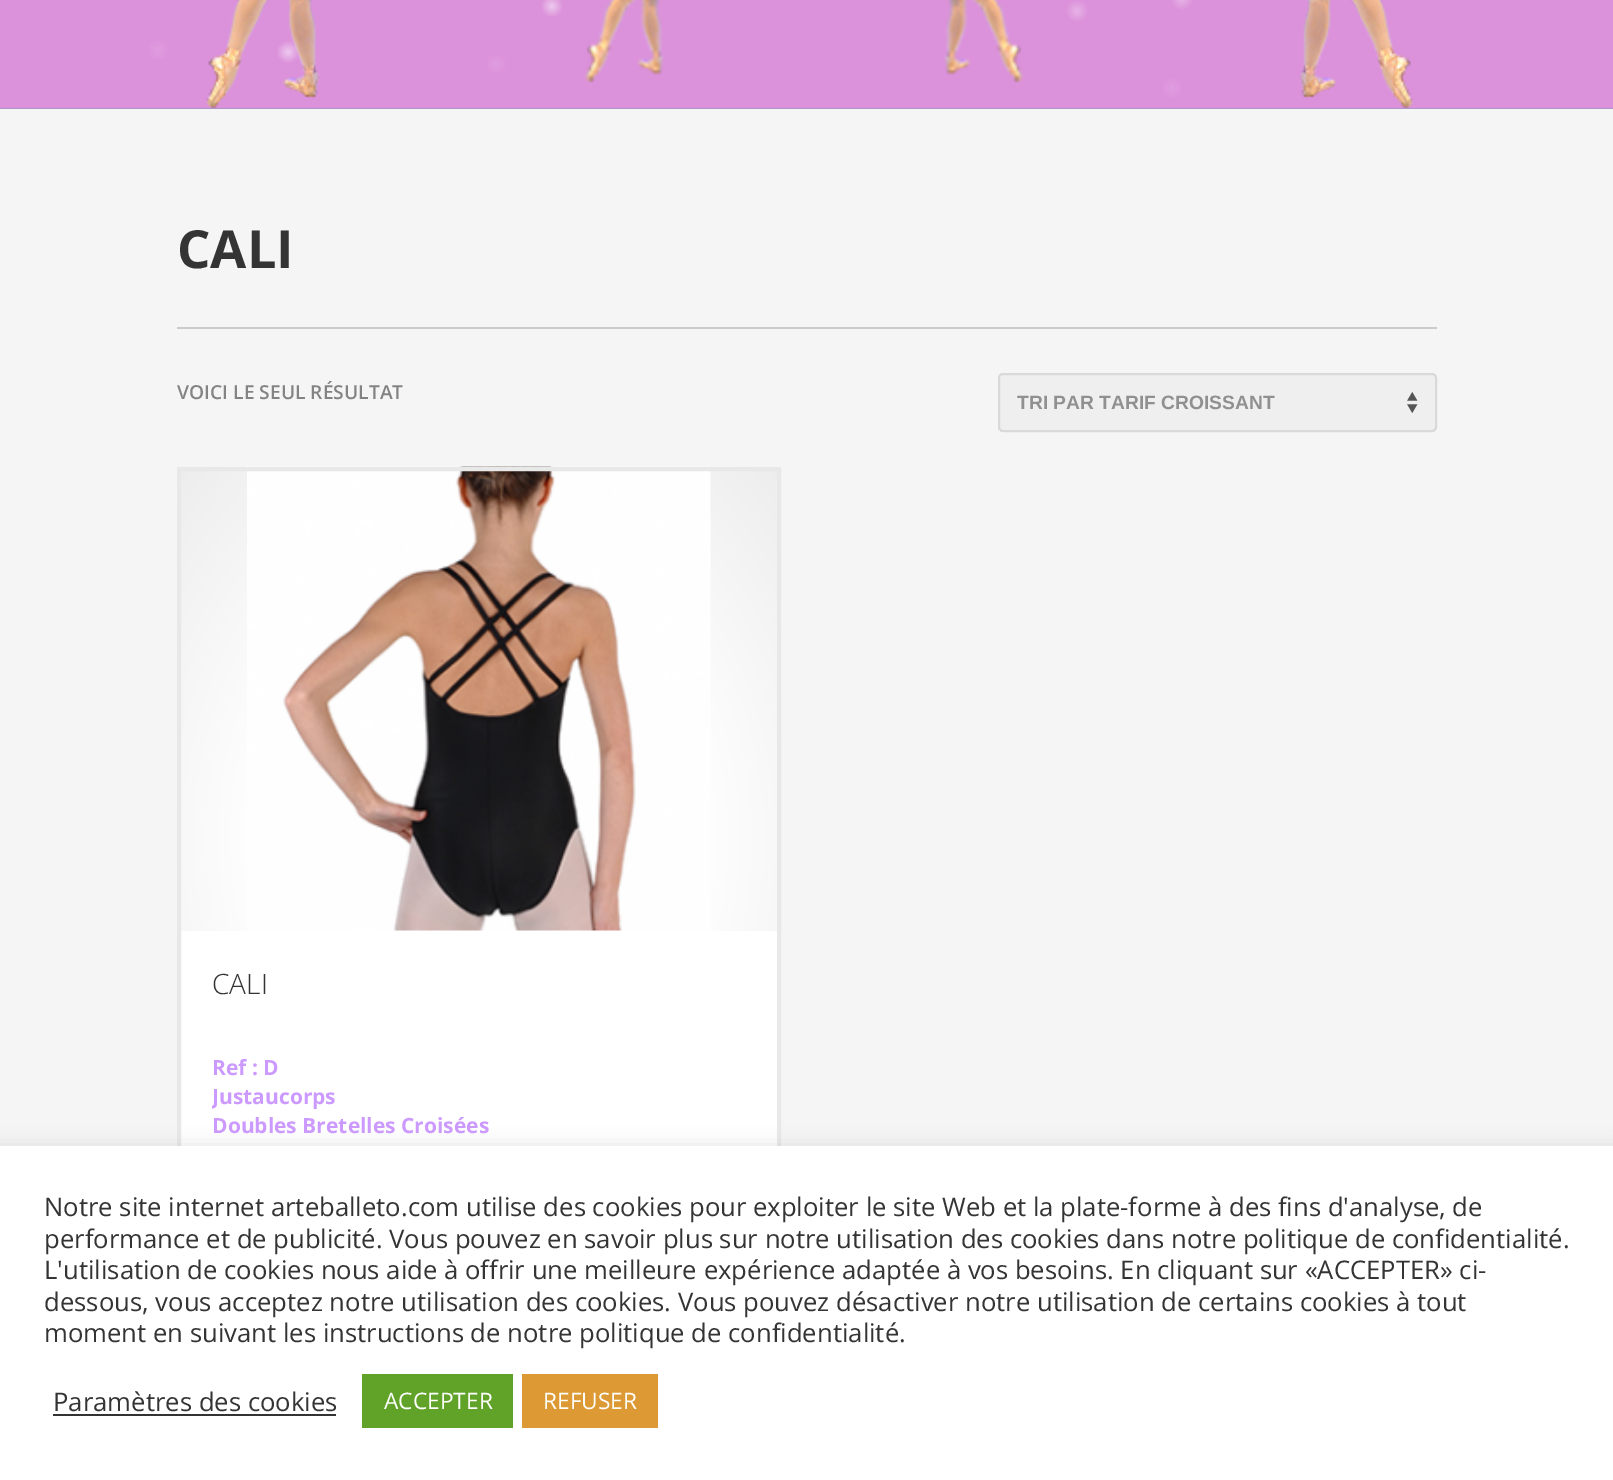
%!PS-Adobe-3.0
%%BoundingBox: 0 0 1613 1480
%%LanguageLevel: 3
%%Pages: 1
%%EndComments
%%BeginProlog
/m { moveto } bind def
/l { lineto } bind def
/h { closepath } bind def
/f { fill } bind def
/S { stroke } bind def
/q { gsave } bind def
/Q { grestore } bind def
/w { setlinewidth } bind def
/fn { [ exch dup neg 0 0 3 -1 roll 0 0 ] selectfont } def
/tx { moveto show } def
/bx { rectfill } def
/al { dup .setfillconstantalpha .setstrokeconstantalpha } def
/rr { 5 dict begin { /r /h /w /y /x } { exch def } forall
  x r add y moveto x w add y 2 copy h add r arct x w add y h add x 1 index r arct
  x y h add x y r arct x y 2 copy exch w add exch r arct closepath end } def
/sh { 12 dict begin { /a /b /q /h /w /y /x } { exch def } forall gsave /was 0 def
  9 -2 -9 { dup b mul 4 div /e exch def 1 sub .425 mul 2.718 exch exp 1 add a .99 .min exch div /now exch def
    1 1 now sub 1 was sub div sub al /was now def
    w h .min e 2 mul add 0 gt { x e sub y e sub w e 2 mul add h e 2 mul add
      q e add b .6 mul add w h .min 2 div e add .min 0 .max rr fill } if } for grestore end } def
/im { 5 dict begin { /h /w /y /x /name } { exch def } forall
  gsave x y translate w h scale
  w h 8 [w 0 0 h 0 0] name (r) file false 3 colorimage grestore end } def
%%EndProlog
%%BeginSetup
<< /PageSize [1613 1480] /PageUsesTransparency true >> setpagedevice
%%EndSetup
%%Page: 1 1
0 .pushpdf14devicefilter
0 1480 translate 1 -1 scale
4 setmiterlimit
0.961 setgray
0 0 1613 1480 bx
0.678 0.588 0.78 setrgbcolor
0 108 1613 1 bx
(image0.raw) 0 0 1613 108 im
q 541 0 m 563 0 l 563 17 l 541 17 l h clip newpath 552 6.1 translate 19 19 scale
<< /ShadingType 3 /ColorSpace /DeviceRGB /Coords [0 0 0 0 0 1] /Extend [true true] /Function << /FunctionType 3 /Domain [0 1] /Functions [<< /FunctionType 2 /Domain [0 1] /C0 [0.933 0.788 0.929] /C1 [0.863 0.573 0.859] /N 1 >> << /FunctionType 2 /Domain [0 1] /C0 [0.863 0.573 0.859] /C1 [0.863 0.573 0.859] /N 1 >>] /Bounds [0.6] /Encode [0 1 0 1] >> >> shfill Q
q 721 0 m 727 0 l 727 1 l 721 1 l h clip newpath 724 -10 translate 19 19 scale
<< /ShadingType 3 /ColorSpace /DeviceRGB /Coords [0 0 0 0 0 1] /Extend [true true] /Function << /FunctionType 3 /Domain [0 1] /Functions [<< /FunctionType 2 /Domain [0 1] /C0 [0.933 0.788 0.929] /C1 [0.863 0.573 0.859] /N 1 >> << /FunctionType 2 /Domain [0 1] /C0 [0.863 0.573 0.859] /C1 [0.863 0.573 0.859] /N 1 >>] /Bounds [0.6] /Encode [0 1 0 1] >> >> shfill Q
q 1066 0 m 1088 0 l 1088 22 l 1066 22 l h clip newpath 1077 11 translate 19 19 scale
<< /ShadingType 3 /ColorSpace /DeviceRGB /Coords [0 0 0 0 0 1] /Extend [true true] /Function << /FunctionType 3 /Domain [0 1] /Functions [<< /FunctionType 2 /Domain [0 1] /C0 [0.906 0.702 0.902] /C1 [0.863 0.573 0.859] /N 1 >> << /FunctionType 2 /Domain [0 1] /C0 [0.863 0.573 0.859] /C1 [0.863 0.573 0.859] /N 1 >>] /Bounds [0.6] /Encode [0 1 0 1] >> >> shfill Q
q 1172 0 m 1192 0 l 1192 10 l 1172 10 l h clip newpath 1182 -0.9 translate 19 19 scale
<< /ShadingType 3 /ColorSpace /DeviceRGB /Coords [0 0 0 0 0 1] /Extend [true true] /Function << /FunctionType 3 /Domain [0 1] /Functions [<< /FunctionType 2 /Domain [0 1] /C0 [0.906 0.702 0.902] /C1 [0.863 0.573 0.859] /N 1 >> << /FunctionType 2 /Domain [0 1] /C0 [0.863 0.573 0.859] /C1 [0.863 0.573 0.859] /N 1 >>] /Bounds [0.6] /Encode [0 1 0 1] >> >> shfill Q
q 149 41 m 167 41 l 167 59 l 149 59 l h clip newpath 158 50 translate 19 19 scale
<< /ShadingType 3 /ColorSpace /DeviceRGB /Coords [0 0 0 0 0 1] /Extend [true true] /Function << /FunctionType 3 /Domain [0 1] /Functions [<< /FunctionType 2 /Domain [0 1] /C0 [0.878 0.616 0.875] /C1 [0.863 0.573 0.859] /N 1 >> << /FunctionType 2 /Domain [0 1] /C0 [0.863 0.573 0.859] /C1 [0.863 0.573 0.859] /N 1 >>] /Bounds [0.6] /Encode [0 1 0 1] >> >> shfill Q
q 487 55 m 505 55 l 505 73 l 487 73 l h clip newpath 496 64 translate 19 19 scale
<< /ShadingType 3 /ColorSpace /DeviceRGB /Coords [0 0 0 0 0 1] /Extend [true true] /Function << /FunctionType 3 /Domain [0 1] /Functions [<< /FunctionType 2 /Domain [0 1] /C0 [0.878 0.616 0.875] /C1 [0.863 0.573 0.859] /N 1 >> << /FunctionType 2 /Domain [0 1] /C0 [0.863 0.573 0.859] /C1 [0.863 0.573 0.859] /N 1 >>] /Bounds [0.6] /Encode [0 1 0 1] >> >> shfill Q
q 1163 79 m 1181 79 l 1181 97 l 1163 97 l h clip newpath 1172 88 translate 19 19 scale
<< /ShadingType 3 /ColorSpace /DeviceRGB /Coords [0 0 0 0 0 1] /Extend [true true] /Function << /FunctionType 3 /Domain [0 1] /Functions [<< /FunctionType 2 /Domain [0 1] /C0 [0.878 0.616 0.875] /C1 [0.863 0.573 0.859] /N 1 >> << /FunctionType 2 /Domain [0 1] /C0 [0.863 0.573 0.859] /C1 [0.863 0.573 0.859] /N 1 >>] /Bounds [0.6] /Encode [0 1 0 1] >> >> shfill Q
0.796 setgray
177 327 1260 2 bx
/OpenSans-Bold 52.5 fn
0.204 setgray
(CALI) 177 268 tx
/OpenSans-SemiBold 19.25 fn
0.514 setgray
(VOICI LE SEUL RÉSULTAT) 177 399 tx
0.937 setgray
998 373 439 59 5 rr f
(image1.raw) 1407 392 11 21 im
0.851 setgray
2 w
999 374 437 57 4 rr S
/LiberationSans-Bold 19.25 fn
0.565 setgray
(TRI PAR TARIF CROISSANT) 1017 409 tx
q 181 471 m 777 471 l 777 931 l 181 931 l h clip newpath 479 839 translate 427 526 scale
<< /ShadingType 3 /ColorSpace /DeviceRGB /Coords [0 0 0 0 0 1] /Extend [true true] /Function << /FunctionType 3 /Domain [0 1] /Functions [<< /FunctionType 2 /Domain [0 1] /C0 [1 1 1] /C1 [1 1 1] /N 1 >> << /FunctionType 2 /Domain [0 1] /C0 [1 1 1] /C1 [0.929 0.929 0.929] /N 1 >>] /Bounds [0.5] /Encode [0 1 0 1] >> >> shfill Q
(image2.raw) 247 466 464 465 im
1 setgray
181 931 596 215 bx
0.91 setgray
4 w
179 469 600 740 rectstroke
/OpenSans-Light 28 fn
0.204 setgray
(CALI) 212 994 tx
/OpenSans-Bold 21 fn
0.8 0.6 1 setrgbcolor
(Ref : D) 212 1075 tx
q
212 1054 534 105 rectclip
(Justaucorps) 212 1104 tx
Q
(Doubles Bretelles Croisées) 212 1133 tx
0.675 0.671 0.671 setrgbcolor
0 1145 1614 334 0 9 0.3 sh
1 setgray
0 1146 1613 334 bx
/OpenSans-Regular 25.67 fn
0.204 setgray
(Notre site internet arteballeto.com utilise des cookies pour exploiter le site Web et la plate-forme à des fins d'analyse, de) 44 1216 tx
(performance et de publicité. Vous pouvez en savoir plus sur notre utilisation des cookies dans notre politique de confidentialité.) 44 1248 tx
(L'utilisation de cookies nous aide à offrir une meilleure expérience adaptée à vos besoins. En cliquant sur «ACCEPTER» ci-) 44 1279 tx
(dessous, vous acceptez notre utilisation des cookies. Vous pouvez désactiver notre utilisation de certains cookies à tout) 44 1311 tx
(moment en suivant les instructions de notre politique de confidentialité.) 44 1342 tx
(Paramètres des cookies) 53 1411 tx
0.2 setgray
53 1414 283 2 bx
0.38 0.635 0.161 setrgbcolor
362 1374 151 54 bx
/OpenSans-Regular 22.75 fn
1 setgray
(ACCEPTER) 384 1409 tx
0.867 0.6 0.2 setrgbcolor
522 1374 136 54 bx
1 setgray
(REFUSER) 543 1409 tx
.poppdf14devicefilter showpage
%%EOF
